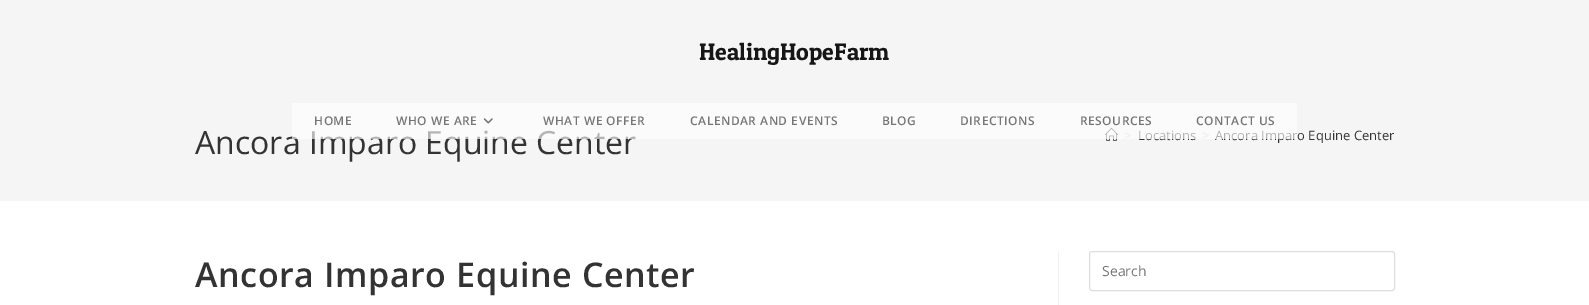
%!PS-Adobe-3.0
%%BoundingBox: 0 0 1589 305
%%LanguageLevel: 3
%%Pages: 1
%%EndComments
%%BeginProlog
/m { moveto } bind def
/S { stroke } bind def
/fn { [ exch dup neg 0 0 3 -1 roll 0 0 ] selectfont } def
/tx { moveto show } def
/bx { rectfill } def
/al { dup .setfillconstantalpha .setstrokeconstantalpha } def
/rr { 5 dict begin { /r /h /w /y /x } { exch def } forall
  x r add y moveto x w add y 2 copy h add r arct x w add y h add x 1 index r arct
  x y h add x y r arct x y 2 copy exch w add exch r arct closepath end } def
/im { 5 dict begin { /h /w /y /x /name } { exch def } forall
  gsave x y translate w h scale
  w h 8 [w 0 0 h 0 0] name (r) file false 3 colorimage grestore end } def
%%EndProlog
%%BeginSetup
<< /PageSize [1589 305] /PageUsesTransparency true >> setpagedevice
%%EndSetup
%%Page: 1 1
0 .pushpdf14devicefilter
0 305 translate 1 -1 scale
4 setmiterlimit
1 setgray
0 0 1589 305 bx
0.961 setgray
0 0 1589 201 bx
/PatuaOne-Regular 24 fn
0.086 setgray
(HealingHopeFarm) 699 60 tx
/OpenSans-Regular 32 fn
0.2 setgray
(Ancora Imparo Equine Center) 195 154 tx
0.63 al
1 setgray
292 103 82 36 bx
/OpenSans-SemiBold 12 fn
1 al
0.459 setgray
314 125 m 0.5 0 (HOME) ashow
0.63 al
1 setgray
374 103 147 36 bx
1 al
0.459 setgray
396 125 m 0.5 0 (WHO WE ARE) ashow
(image0.raw) 483 118 10 6 im
0.63 al
1 setgray
521 103 147 36 bx
1 al
0.459 setgray
543 125 m 0.5 0 (WHAT WE OFFER) ashow
0.984 setgray
668 103 390 36 bx
0.459 setgray
690 125 m 0.5 0 (CALENDAR AND EVENTS) ashow
882 125 m 0.5 0 (BLOG) ashow
960 125 m 0.5 0 (DIRECTIONS) ashow
(image1.raw) 1105 127 13 14 im
/OpenSans-Regular 13 fn
0.776 setgray
(>) 1124 140 tx
0.2 setgray
(Locations) 1138 140 tx
0.63 al
1 setgray
1058 103 116 36 bx
/OpenSans-SemiBold 12 fn
1 al
0.459 setgray
1080 125 m 0.5 0 (RESOURCES) ashow
/OpenSans-Regular 13 fn
0.776 setgray
(>) 1202 140 tx
0.2 setgray
(Ancora Imparo Equine Center) 1215 140 tx
0.63 al
1 setgray
1174 103 123 36 bx
/OpenSans-SemiBold 12 fn
1 al
0.459 setgray
1196 125 m 0.5 0 (CONTACT US) ashow
0.945 setgray
1058 251 1 54 bx
/OpenSans-SemiBold 34 fn
0.2 setgray
195 287 m 0.6 0 (Ancora Imparo Equine Center) ashow
0.867 setgray
1089.5 251.5 305 39 2.5 rr S
/OpenSans-Regular 14 fn
0.459 setgray
(Search) 1102 276 tx
.poppdf14devicefilter showpage
%%EOF
